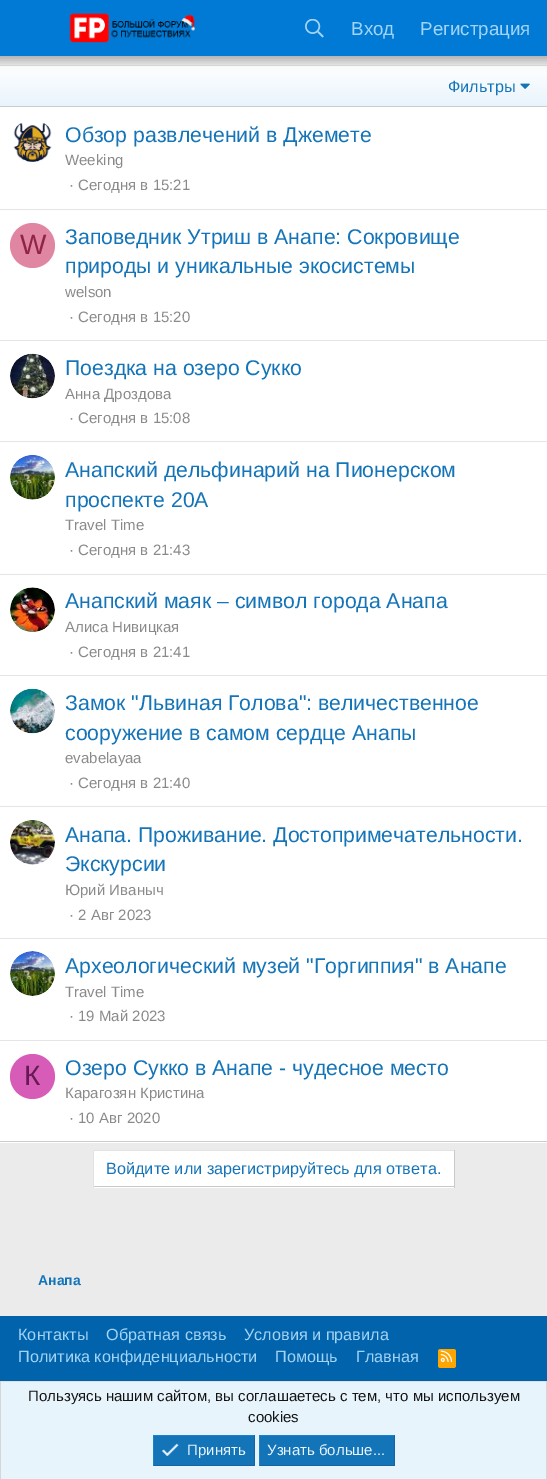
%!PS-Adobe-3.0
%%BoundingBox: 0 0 547 1479
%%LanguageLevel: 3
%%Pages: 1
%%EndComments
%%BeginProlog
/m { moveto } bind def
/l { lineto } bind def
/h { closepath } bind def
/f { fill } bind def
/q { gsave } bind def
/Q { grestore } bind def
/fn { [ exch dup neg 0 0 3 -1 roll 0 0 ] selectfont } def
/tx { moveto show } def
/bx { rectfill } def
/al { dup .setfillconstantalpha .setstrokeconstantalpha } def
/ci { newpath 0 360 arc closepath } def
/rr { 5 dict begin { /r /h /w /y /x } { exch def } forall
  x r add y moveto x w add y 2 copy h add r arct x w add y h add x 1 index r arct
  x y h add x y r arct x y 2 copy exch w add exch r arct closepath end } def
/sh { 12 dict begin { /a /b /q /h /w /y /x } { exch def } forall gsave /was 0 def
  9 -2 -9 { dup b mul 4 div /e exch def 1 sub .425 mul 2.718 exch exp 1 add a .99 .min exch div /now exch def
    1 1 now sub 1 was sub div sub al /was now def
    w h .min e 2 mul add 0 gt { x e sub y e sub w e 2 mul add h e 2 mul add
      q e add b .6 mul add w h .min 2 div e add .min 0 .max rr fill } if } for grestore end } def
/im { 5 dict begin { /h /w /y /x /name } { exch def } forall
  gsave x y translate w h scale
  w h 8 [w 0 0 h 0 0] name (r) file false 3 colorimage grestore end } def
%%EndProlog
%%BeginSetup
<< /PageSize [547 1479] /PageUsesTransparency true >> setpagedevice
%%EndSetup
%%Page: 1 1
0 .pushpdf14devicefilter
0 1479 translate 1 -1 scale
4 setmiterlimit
0.922 setgray
0 0 547 1479 bx
0.878 setgray
0 65 547 1 bx
q 0 66 m 547 66 l 547 106 l 0 106 l h clip newpath
<< /ShadingType 2 /ColorSpace /DeviceRGB /Coords [274 106 274 66] /Extend [true true] /Function << /FunctionType 2 /Domain [0 1] /C0 [0.91 0.957 0.988] /C1 [1 1 1] /N 1 >> >> shfill Q
0 setgray
-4 -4 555 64 0 5 0.3 sh
0 0.478 0.831 setrgbcolor
0 0 547 56 bx
(image0.raw) 69 13 126 30 im
(image1.raw) 305 19 19 19 im
/LiberationSans-Regular 18.75 fn
0.639 0.831 0.961 setrgbcolor
(Вход) 351 35 tx
(Регистрация) 420 35 tx
1 setgray
0 107 547 1036 bx
0.8 setgray
0 1141 547 1 bx
0 106 547 1 bx
/LiberationSans-Regular 16.25 fn
0.078 0.455 0.722 setrgbcolor
(Фильтры) 448 92 tx
(image2.raw) 520 83 10 6 im
(image3.raw) 13 123 39 39 im
/LiberationSans-Regular 21.25 fn
(Обзор развлечений в Джемете) 65 142 tx
/LiberationSans-Regular 15 fn
0.541 setgray
(Weeking) 65 165 tx
(· Сегодня в 15:21) 69 190 tx
0.898 setgray
0 209 547 1 bx
0.878 0.522 0.635 setrgbcolor
32.5 245.5 22.5 ci f
/LiberationSans-Regular 28 fn
0.561 0.141 0.275 setrgbcolor
(W) 20 254 tx
/LiberationSans-Regular 21.25 fn
0.078 0.455 0.722 setrgbcolor
(Заповедник Утриш в Анапе: Сокровище) 65 244 tx
(природы и уникальные экосистемы) 65 273 tx
/LiberationSans-Regular 15 fn
0.541 setgray
(welson) 65 297 tx
(· Сегодня в 15:20) 69 322 tx
0.898 setgray
0 340 547 1 bx
(image4.raw) 10 353 45 46 im
/LiberationSans-Regular 21.25 fn
0.078 0.455 0.722 setrgbcolor
(Поездка на озеро Сукко) 65 375 tx
/LiberationSans-Regular 15 fn
0.541 setgray
(Анна Дроздова) 65 399 tx
(· Сегодня в 15:08) 69 423 tx
0.898 setgray
0 441 547 1 bx
(image5.raw) 10 455 45 45 im
/LiberationSans-Regular 21.25 fn
0.078 0.455 0.722 setrgbcolor
(Анапский дельфинарий на Пионерском) 65 477 tx
(проспекте 20А) 65 507 tx
/LiberationSans-Regular 15 fn
0.541 setgray
(Travel Time) 65 530 tx
(· Сегодня в 21:43) 69 555 tx
0.898 setgray
0 574 547 1 bx
(image6.raw) 10 587 45 45 im
/LiberationSans-Regular 21.25 fn
0.078 0.455 0.722 setrgbcolor
(Анапский маяк – символ города Анапа) 65 608 tx
/LiberationSans-Regular 15 fn
0.541 setgray
(Алиса Нивицкая) 65 632 tx
(· Сегодня в 21:41) 69 657 tx
0.898 setgray
0 675 547 1 bx
(image7.raw) 10 688 45 46 im
/LiberationSans-Regular 21.25 fn
0.078 0.455 0.722 setrgbcolor
(Замок "Львиная Голова": величественное) 65 710 tx
(сооружение в самом сердце Анапы) 65 740 tx
/LiberationSans-Regular 15 fn
0.541 setgray
(evabelayaa) 65 763 tx
(· Сегодня в 21:40) 69 788 tx
0.898 setgray
0 806 547 1 bx
(image8.raw) 10 820 45 45 im
/LiberationSans-Regular 21.25 fn
0.078 0.455 0.722 setrgbcolor
(Анапа. Проживание. Достопримечательности.) 65 842 tx
(Экскурсии) 65 871 tx
/LiberationSans-Regular 15 fn
0.541 setgray
(Юрий Иваныч) 65 895 tx
(· 2 Авг 2023) 69 920 tx
0.898 setgray
0 938 547 1 bx
(image9.raw) 10 951 45 45 im
/LiberationSans-Regular 21.25 fn
0.078 0.455 0.722 setrgbcolor
(Археологический музей "Горгиппия" в Анапе) 65 973 tx
/LiberationSans-Regular 15 fn
0.541 setgray
(Travel Time) 65 997 tx
(· 19 Май 2023) 69 1021 tx
0.898 setgray
0 1040 547 1 bx
0.839 0.361 0.722 setrgbcolor
32.5 1076.5 22.5 ci f
/LiberationSans-Regular 28 fn
0.4 0.102 0.325 setrgbcolor
(К) 24 1085 tx
/LiberationSans-Regular 21.25 fn
0.078 0.455 0.722 setrgbcolor
(Озеро Сукко в Анапе - чудесное место) 65 1075 tx
/LiberationSans-Regular 15 fn
0.541 setgray
(Карагозян Кристина) 65 1098 tx
(· 10 Авг 2020) 69 1123 tx
1 setgray
94 1151 360 37 bx
0.89 setgray
93 1150 362 1 bx
0.788 setgray
454 1150 1 38 bx
93 1186 362 1 bx
0.89 setgray
93 1150 1 38 bx
/LiberationSans-Regular 16.25 fn
0.078 0.455 0.722 setrgbcolor
(Войдите или зарегистрируйтесь для ответа.) 106 1174 tx
/LiberationSans-Bold 14 fn
(Анапа) 38 1285 tx
0 0.388 0.671 setrgbcolor
0 1316 547 65 bx
/LiberationSans-Regular 16.25 fn
0.639 0.831 0.961 setrgbcolor
(Контакты) 18 1340 tx
(Обратная связь) 106 1340 tx
(Условия и правила) 244 1340 tx
(Политика конфиденциальности) 18 1362 tx
(Помощь) 275 1362 tx
(Главная) 356 1362 tx
1 0.647 0 setrgbcolor
438 1349 18 19 2.5 rr f
(image10.raw) 440 1350 13 12 im
0.91 0.957 0.988 setrgbcolor
1 1382 545 97 bx
0.878 setgray
0 1381 547 1 bx
0.839 setgray
546 1381 1 98 bx
0 1381 1 98 bx
/LiberationSans-Regular 15 fn
0.078 setgray
(Пользуясь нашим сайтом, вы соглашаетесь с тем, что мы используем) 28 1401 tx
(cookies) 248 1422 tx
0.078 0.455 0.722 setrgbcolor
154 1436 100 29 bx
0.09 0.51 0.812 setrgbcolor
153 1435 102 1 bx
0.071 0.396 0.631 setrgbcolor
254 1435 1 31 bx
153 1465 102 1 bx
0.09 0.51 0.812 setrgbcolor
153 1435 1 31 bx
(image11.raw) 162 1443 17 14 im
0.91 0.957 0.988 setrgbcolor
(Принять) 187 1455 tx
0.078 0.455 0.722 setrgbcolor
260 1436 134 29 bx
0.09 0.51 0.812 setrgbcolor
259 1435 136 1 bx
0.071 0.396 0.631 setrgbcolor
394 1435 1 31 bx
259 1465 136 1 bx
0.09 0.51 0.812 setrgbcolor
259 1435 1 31 bx
0.91 0.957 0.988 setrgbcolor
(Узнать больше...) 267 1455 tx
.poppdf14devicefilter showpage
%%EOF
